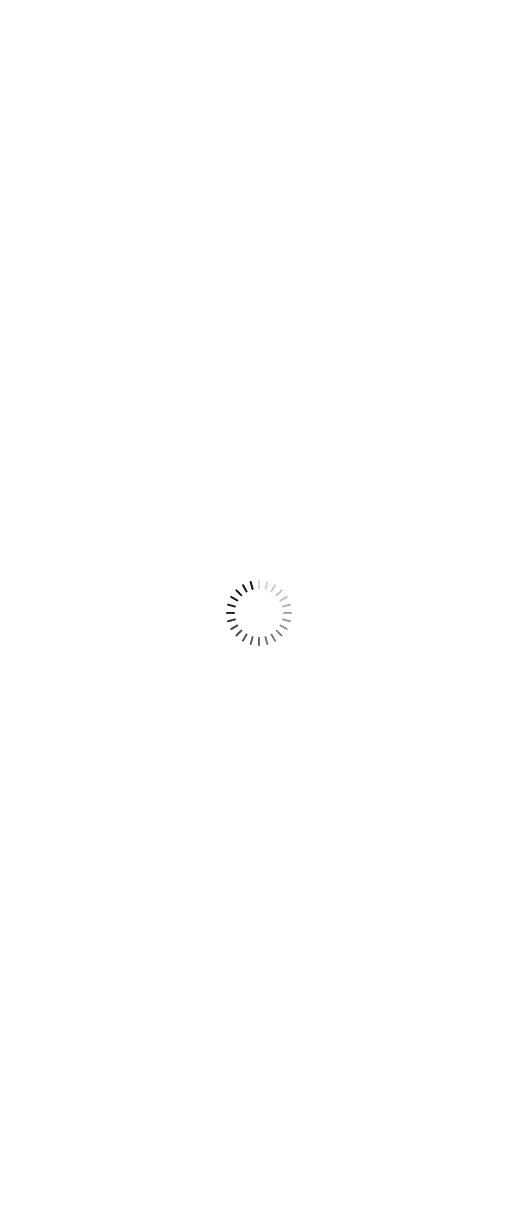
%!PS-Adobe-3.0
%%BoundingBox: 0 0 518 1225
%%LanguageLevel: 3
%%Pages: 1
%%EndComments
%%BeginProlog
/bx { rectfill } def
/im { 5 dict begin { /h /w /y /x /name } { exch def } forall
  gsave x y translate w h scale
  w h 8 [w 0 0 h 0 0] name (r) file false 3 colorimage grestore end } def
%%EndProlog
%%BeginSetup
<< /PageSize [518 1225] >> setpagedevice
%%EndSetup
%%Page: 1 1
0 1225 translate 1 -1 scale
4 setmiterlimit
1 setgray
0 0 518 1225 bx
(image0.raw) 226 580 66 66 im
showpage
%%EOF
